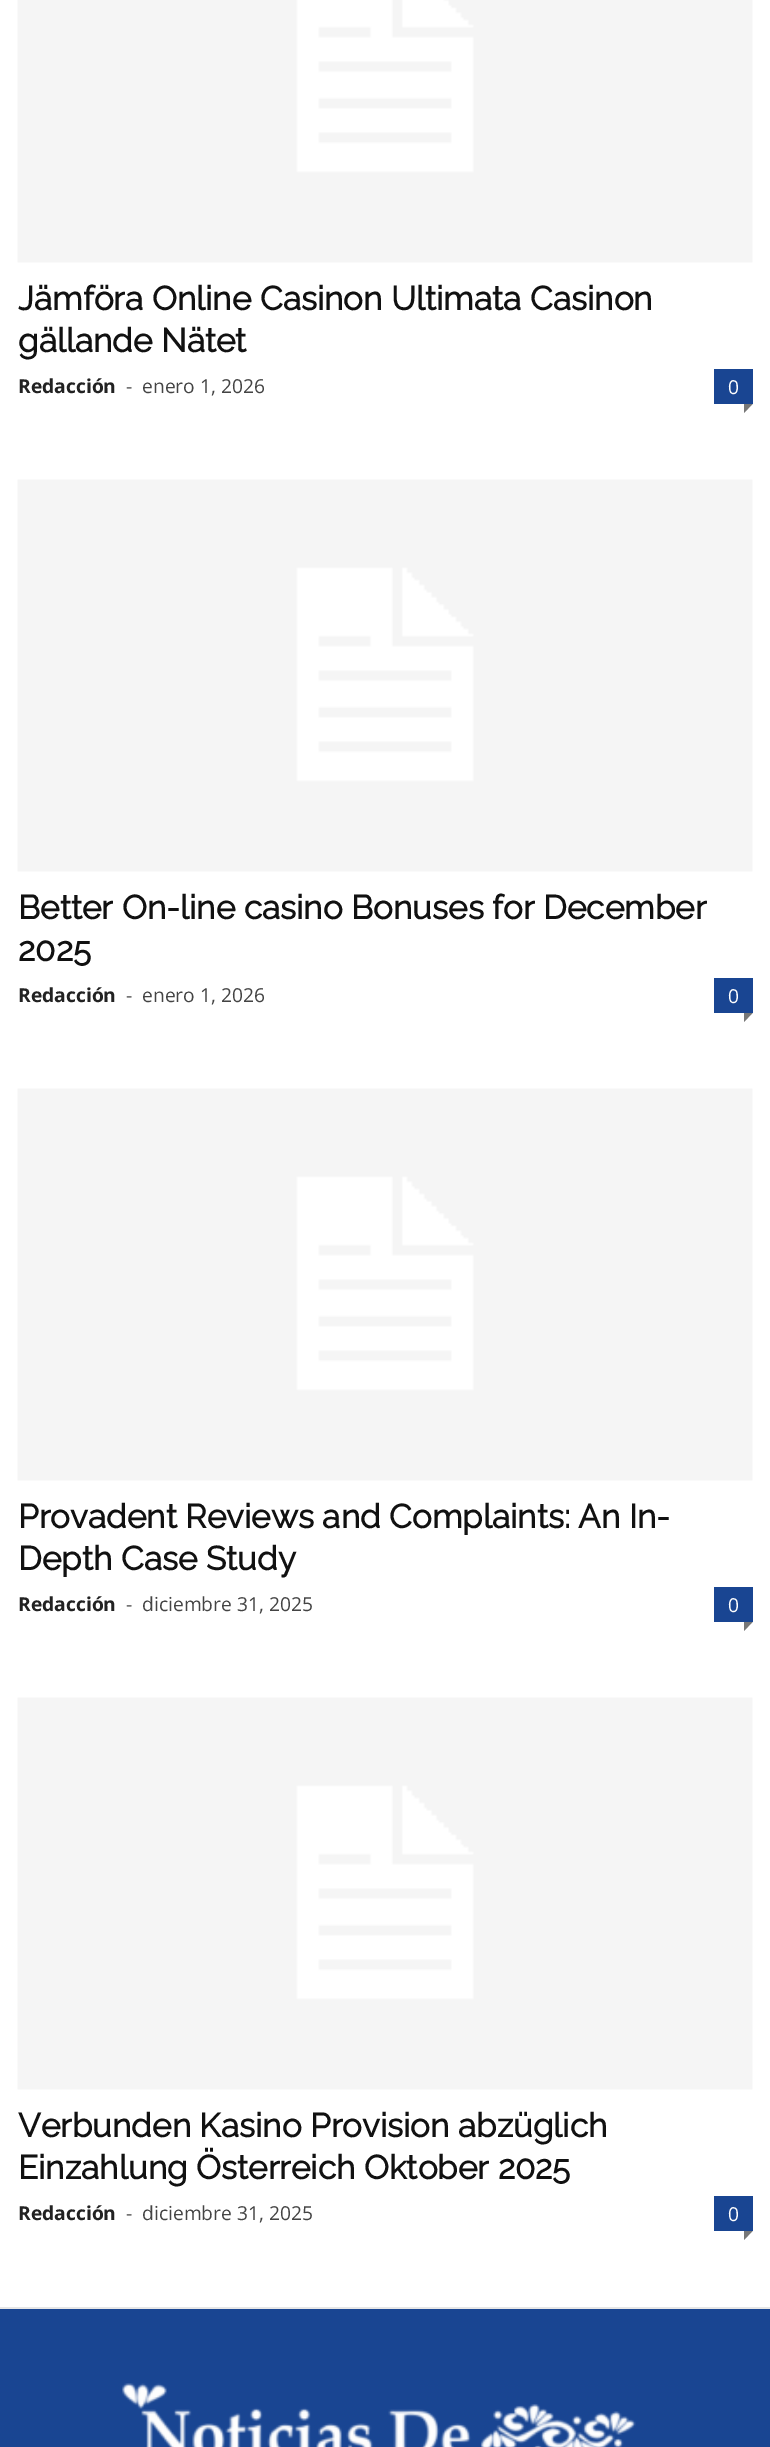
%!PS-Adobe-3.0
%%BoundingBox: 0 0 770 2447
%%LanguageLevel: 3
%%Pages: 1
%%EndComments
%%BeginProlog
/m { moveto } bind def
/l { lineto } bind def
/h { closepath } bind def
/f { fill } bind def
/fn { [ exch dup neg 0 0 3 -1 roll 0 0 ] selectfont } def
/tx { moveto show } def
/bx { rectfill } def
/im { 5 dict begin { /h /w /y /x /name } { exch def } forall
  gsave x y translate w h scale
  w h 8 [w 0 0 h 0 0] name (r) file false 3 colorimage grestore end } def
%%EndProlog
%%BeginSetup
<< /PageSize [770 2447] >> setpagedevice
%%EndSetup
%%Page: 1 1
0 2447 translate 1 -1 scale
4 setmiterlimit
1 setgray
0 0 770 2447 bx
0.902 setgray
0 2307 770 2 bx
(image0.raw) 17 0 736 263 im
/Raleway-Bold 33.25 fn
0.067 setgray
(Jämföra Online Casinon Ultimata Casinon) 18 310 tx
(gällande Nätet) 18 352 tx
/OpenSans-Bold 19.25 fn
0.133 setgray
(Redacción) 18 393 tx
/OpenSans-Regular 19.25 fn
0.267 setgray
(-) 126 393 tx
(enero 1, 2026) 142 393 tx
0.098 0.271 0.573 setrgbcolor
714 369 39 35 bx
1 setgray
(0) 728 394 tx
0.467 setgray
744 404 m 752.5 404 l 744 413 l h f
(image1.raw) 17 479 736 393 im
/Raleway-Bold 33.25 fn
0.067 setgray
(Better On-line casino Bonuses for December) 18 919 tx
(2025) 18 961 tx
/OpenSans-Bold 19.25 fn
0.133 setgray
(Redacción) 18 1002 tx
/OpenSans-Regular 19.25 fn
0.267 setgray
(-) 126 1002 tx
(enero 1, 2026) 142 1002 tx
0.098 0.271 0.573 setrgbcolor
714 978 39 35 bx
1 setgray
(0) 728 1003 tx
0.467 setgray
744 1013 m 752.5 1013 l 744 1022 l h f
(image2.raw) 17 1088 736 393 im
/Raleway-Bold 33.25 fn
0.067 setgray
(Provadent Reviews and Complaints: An In-) 18 1528 tx
(Depth Case Study) 18 1570 tx
/OpenSans-Bold 19.25 fn
0.133 setgray
(Redacción) 18 1611 tx
/OpenSans-Regular 19.25 fn
0.267 setgray
(-) 126 1611 tx
(diciembre 31, 2025) 142 1611 tx
0.098 0.271 0.573 setrgbcolor
714 1587 39 35 bx
1 setgray
(0) 728 1612 tx
0.467 setgray
744 1622 m 752.5 1622 l 744 1631 l h f
(image3.raw) 17 1697 736 393 im
/Raleway-Bold 33.25 fn
0.067 setgray
(Verbunden Kasino Provision abzüglich) 18 2137 tx
(Einzahlung Österreich Oktober 2025) 18 2179 tx
/OpenSans-Bold 19.25 fn
0.133 setgray
(Redacción) 18 2220 tx
/OpenSans-Regular 19.25 fn
0.267 setgray
(-) 126 2220 tx
(diciembre 31, 2025) 142 2220 tx
0.098 0.271 0.573 setrgbcolor
714 2196 39 35 bx
1 setgray
(0) 728 2221 tx
0.467 setgray
744 2231 m 752.5 2231 l 744 2240 l h f
0.098 0.271 0.573 setrgbcolor
0 2309 770 138 bx
(image4.raw) 122 2383 514 64 im
showpage
%%EOF
